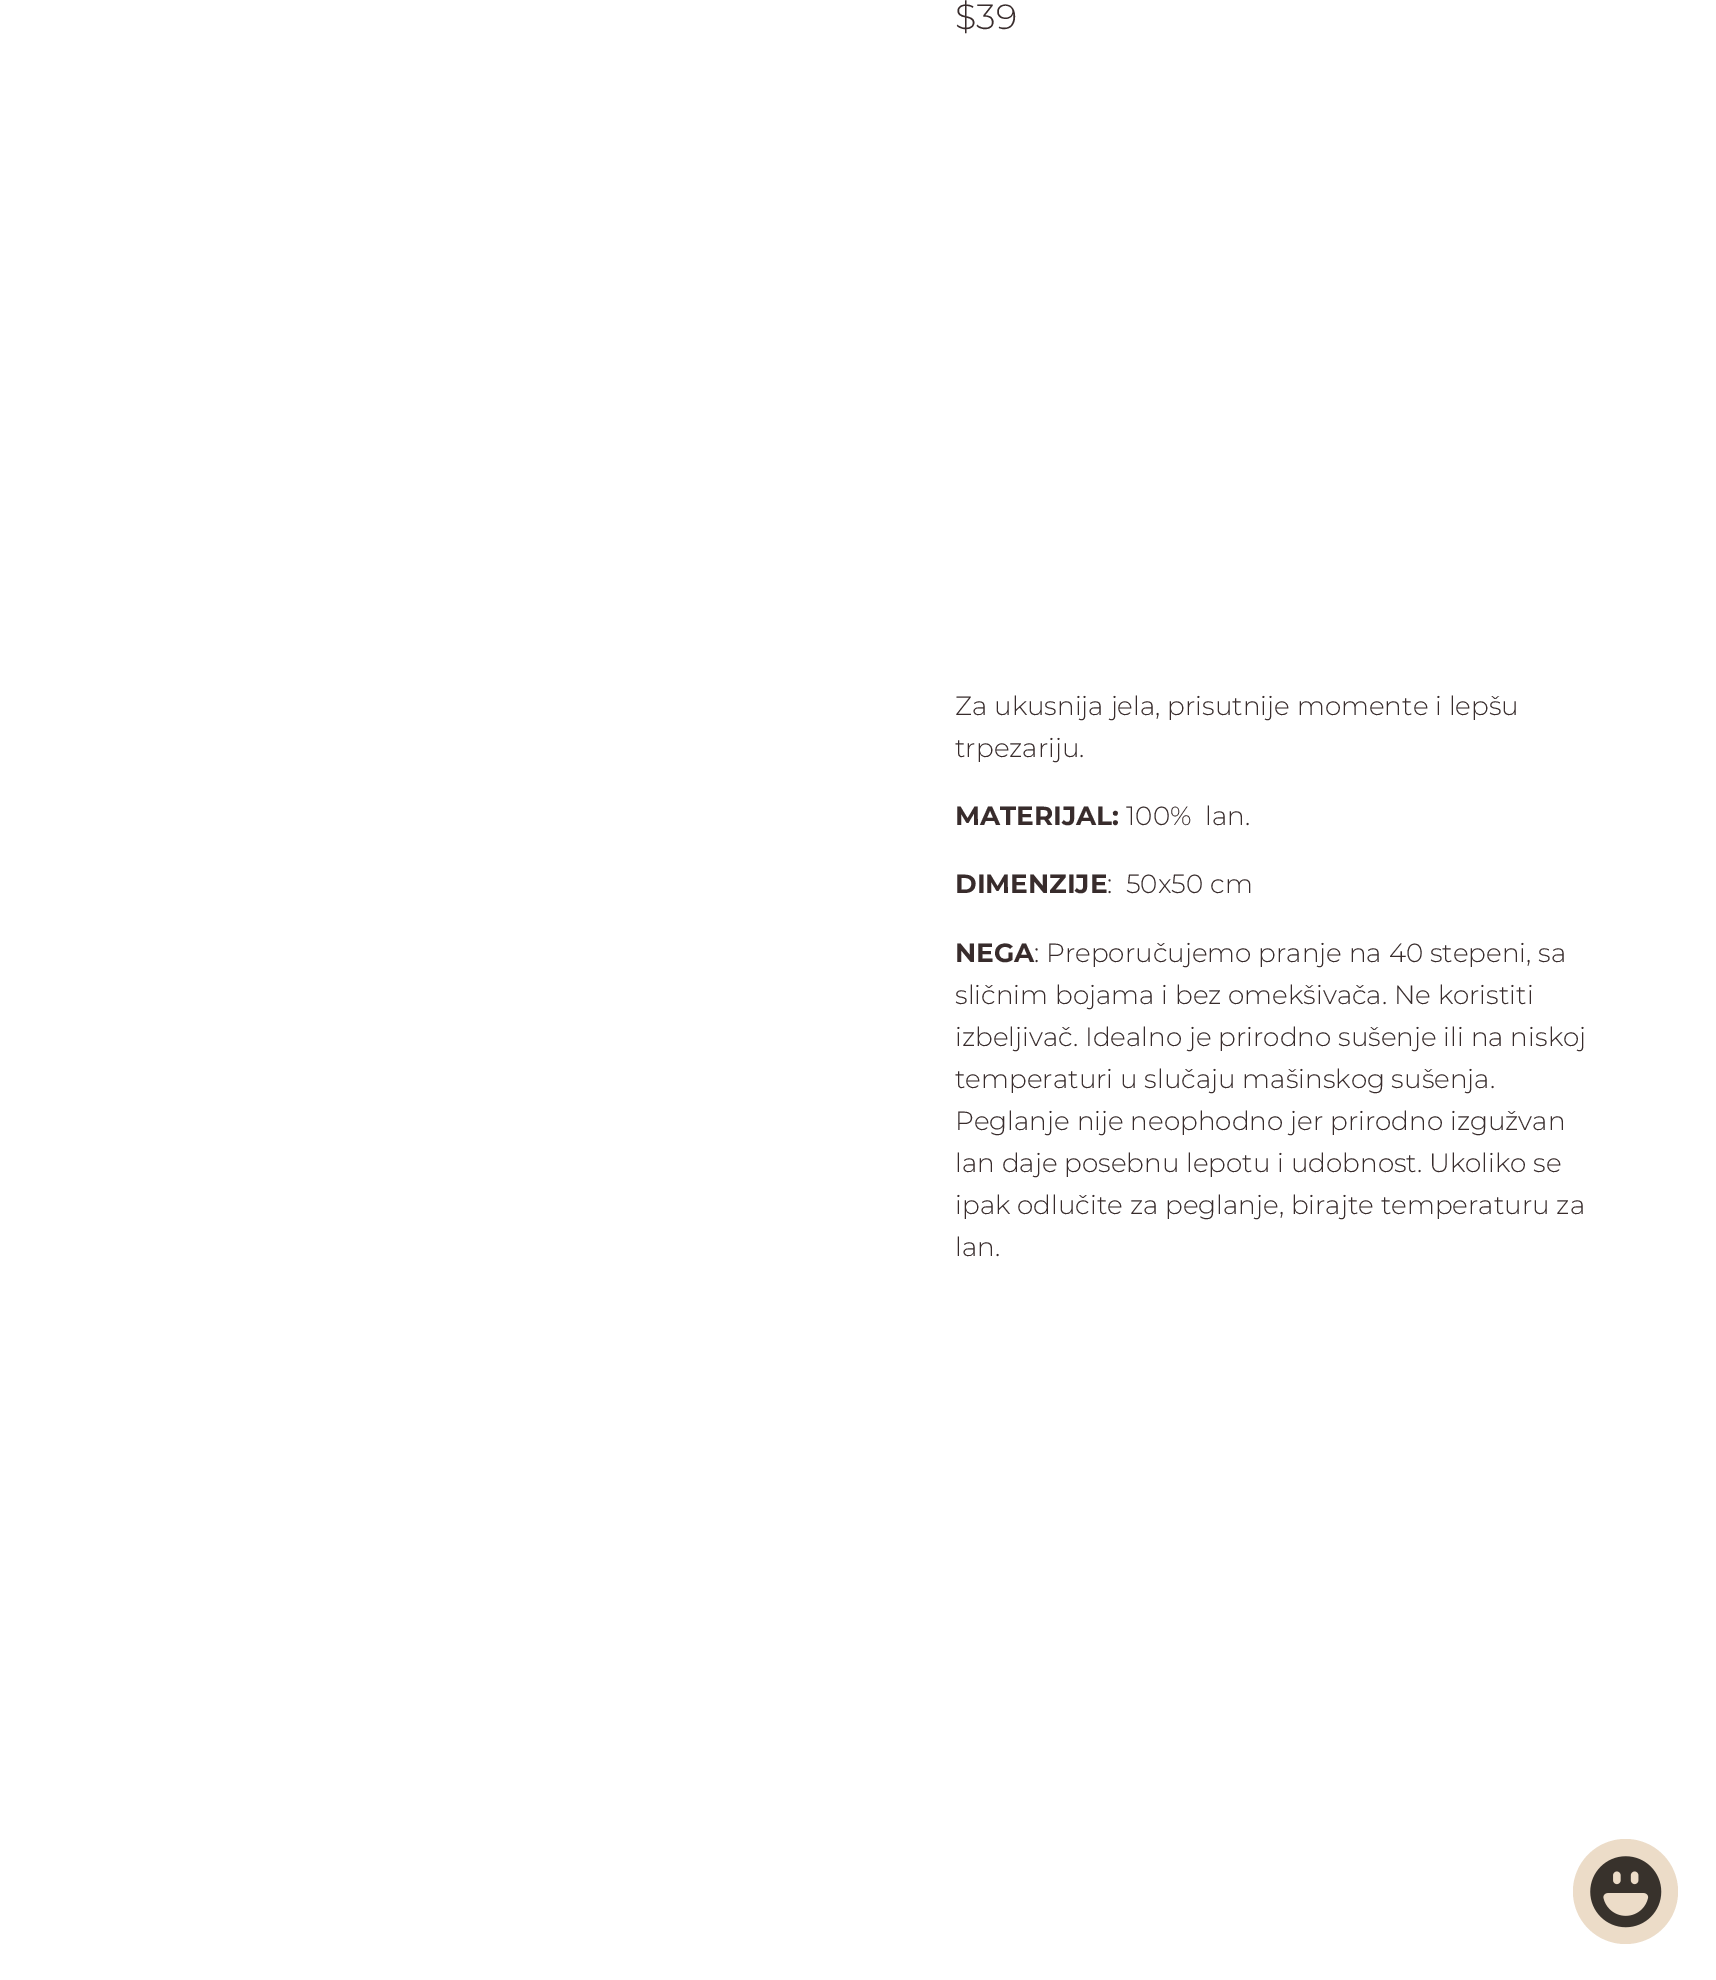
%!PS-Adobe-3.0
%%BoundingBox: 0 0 1716 1980
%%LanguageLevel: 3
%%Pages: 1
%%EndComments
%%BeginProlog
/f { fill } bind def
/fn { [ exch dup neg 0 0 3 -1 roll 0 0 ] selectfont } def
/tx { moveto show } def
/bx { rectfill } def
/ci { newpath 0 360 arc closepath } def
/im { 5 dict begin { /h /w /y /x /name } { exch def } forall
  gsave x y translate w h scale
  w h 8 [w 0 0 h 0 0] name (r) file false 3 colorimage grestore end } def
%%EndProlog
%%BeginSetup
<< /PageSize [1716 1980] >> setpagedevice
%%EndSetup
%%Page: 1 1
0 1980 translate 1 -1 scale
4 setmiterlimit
1 setgray
0 0 1716 1980 bx
/Montserrat-Light 35 fn
0.22 0.173 0.173 setrgbcolor
($39) 955 29 tx
/Montserrat-Light 26.25 fn
(Za ukusnija jela, prisutnije momente i lepšu) 955 715 tx
(trpezariju.) 955 757 tx
/Montserrat-Bold 26.25 fn
(MATERIJAL:) 955 825 tx
/Montserrat-Light 26.25 fn
(100%  lan.) 1126 825 tx
/Montserrat-Bold 26.25 fn
(DIMENZIJE) 955 893 tx
/Montserrat-Light 26.25 fn
(:  50x50 cm) 1107 893 tx
/Montserrat-Bold 26.25 fn
(NEGA) 955 962 tx
/Montserrat-Light 26.25 fn
(: Preporučujemo pranje na 40 stepeni, sa) 1034 962 tx
(sličnim bojama i bez omekšivača. Ne koristiti) 955 1004 tx
(izbeljivač. Idealno je prirodno sušenje ili na niskoj) 955 1046 tx
(temperaturi u slučaju mašinskog sušenja.) 955 1088 tx
(Peglanje nije neophodno jer prirodno izgužvan) 955 1130 tx
(lan daje posebnu lepotu i udobnost. Ukoliko se) 955 1172 tx
(ipak odlučite za peglanje, birajte temperaturu za) 955 1214 tx
(lan.) 955 1256 tx
0.925 0.863 0.784 setrgbcolor
1625.5 1891.5 52.5 ci f
(image0.raw) 1590 1856 72 72 im
showpage
%%EOF
